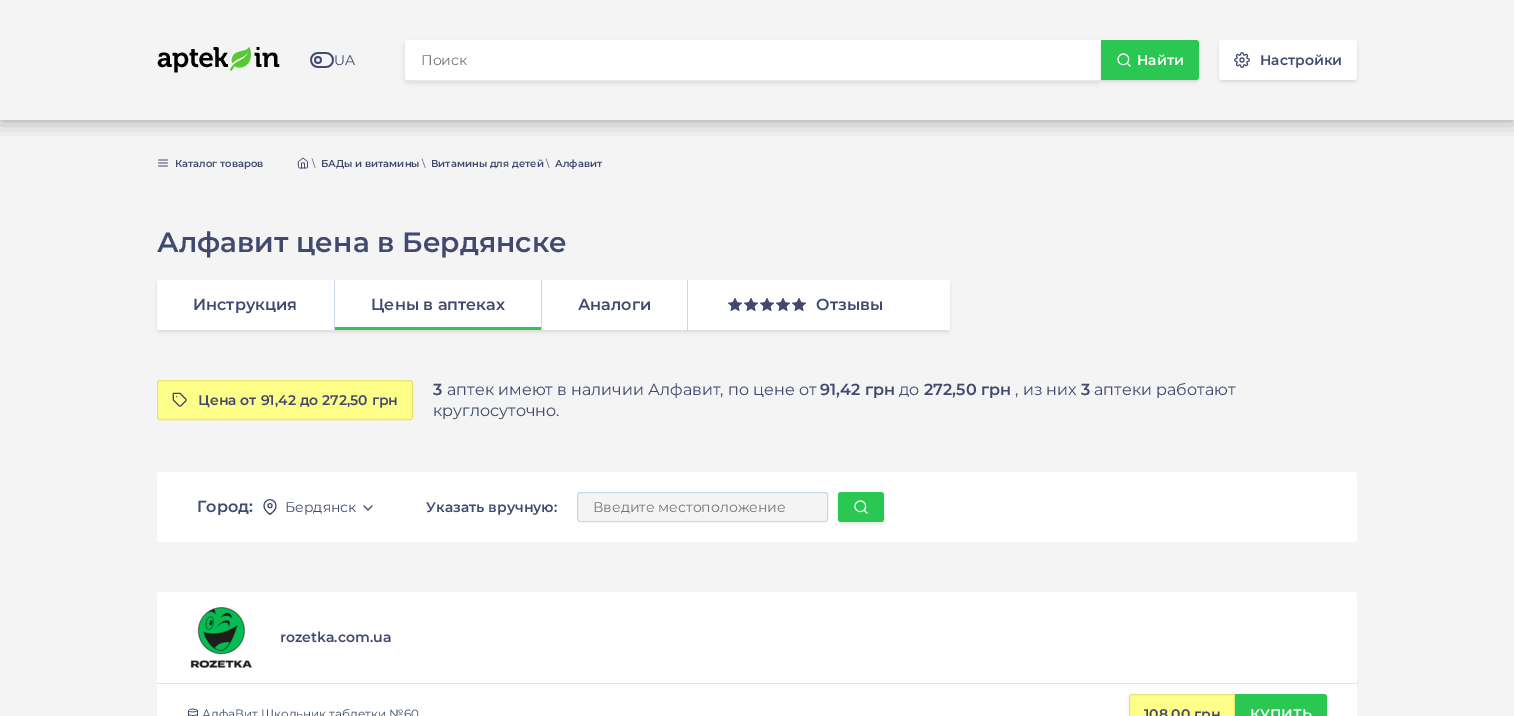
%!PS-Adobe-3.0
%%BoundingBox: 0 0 1514 716
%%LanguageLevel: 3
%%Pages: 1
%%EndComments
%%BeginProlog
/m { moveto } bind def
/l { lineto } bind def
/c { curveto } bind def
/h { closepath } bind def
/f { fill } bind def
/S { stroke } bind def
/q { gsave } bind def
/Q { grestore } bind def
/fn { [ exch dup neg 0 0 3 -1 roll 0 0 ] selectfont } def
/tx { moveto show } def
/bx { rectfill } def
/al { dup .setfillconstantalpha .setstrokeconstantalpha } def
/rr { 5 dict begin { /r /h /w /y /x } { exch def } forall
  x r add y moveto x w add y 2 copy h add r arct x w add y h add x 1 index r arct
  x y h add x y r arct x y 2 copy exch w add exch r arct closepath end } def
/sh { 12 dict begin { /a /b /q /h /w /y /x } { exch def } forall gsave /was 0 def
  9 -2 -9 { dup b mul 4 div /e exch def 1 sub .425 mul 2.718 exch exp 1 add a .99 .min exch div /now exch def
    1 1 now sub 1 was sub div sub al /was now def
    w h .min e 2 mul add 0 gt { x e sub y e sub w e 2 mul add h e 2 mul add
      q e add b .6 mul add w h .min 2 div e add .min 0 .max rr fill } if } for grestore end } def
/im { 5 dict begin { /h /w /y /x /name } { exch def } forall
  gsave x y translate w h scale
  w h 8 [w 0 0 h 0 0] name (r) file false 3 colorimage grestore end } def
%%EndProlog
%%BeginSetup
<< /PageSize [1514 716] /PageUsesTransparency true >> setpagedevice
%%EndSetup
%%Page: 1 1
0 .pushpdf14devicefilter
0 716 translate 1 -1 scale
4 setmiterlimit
0.957 setgray
0 0 1514 716 bx
q
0 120 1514 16 rectclip
0 setgray
0 0 1514 120 0 10 0.35 sh
Q
(image0.raw) 157 47 123 26 im
(image1.raw) 310 52 24 16 im
/Montserrat-Regular 14 fn
0.259 0.286 0.431 setrgbcolor
(UA) 334 65 tx
0 setgray
405 43 696 40 3 2.5 0.1 sh
1 setgray
408 40.5 m 1100.5 40.5 l 1100.5 79.5 l 408 79.5 l 406.5 79.5 405.5 78.5 405.5 77 c 405.5 43 l 405.5 41.5 406.5 40.5 408 40.5 c h q f Q
S
0.459 setgray
(Поиск) 421 65 tx
0 setgray
1101 42 98 40 3 1.5 0.1 sh
0.165 0.784 0.325 setrgbcolor
1101 40 m 1196 40 l 1197.5 40 1199 41.5 1199 43 c 1199 77 l 1199 78.5 1197.5 80 1196 80 c 1101 80 l h f
(image2.raw) 1117 53 14 14 im
/Montserrat-SemiBold 14 fn
1 setgray
(Найти) 1137 65 tx
0 setgray
1219 42 138 40 3 1.5 0.1 sh
1 setgray
1219 40 138 40 3 rr f
(image3.raw) 1234 52 16 16 im
0.259 0.286 0.431 setrgbcolor
(Настройки) 1260 65 tx
(image4.raw) 158 159 10 8 im
/Montserrat-SemiBold 10 fn
(Каталог товаров) 175 167 tx
(image5.raw) 297 157 11 12 im
/Montserrat-Regular 10 fn
(\\) 312 167 tx
/Montserrat-SemiBold 10 fn
(БАДы и витамины) 321 167 tx
/Montserrat-Regular 10 fn
(\\) 422 167 tx
/Montserrat-SemiBold 10 fn
(Витамины для детей) 431 167 tx
/Montserrat-Regular 10 fn
(\\) 546 167 tx
/Montserrat-SemiBold 10 fn
(Алфавит) 555 167 tx
/Montserrat-SemiBold 28 fn
(Алфавит цена в Бердянске) 157 252 tx
0 setgray
157 282 793 50 3 1.5 0.1 sh
1 setgray
160 280 m 947 280 l 948.5 280 950 281.5 950 283 c 950 330 l 157 330 l 157 283 l 157 281.5 158.5 280 160 280 c h f
/Montserrat-SemiBold 16 fn
0.259 0.286 0.431 setrgbcolor
(Инструкция) 193 310 tx
0.796 0.843 0.929 setrgbcolor
334 280 1 50 bx
0.259 0.286 0.431 setrgbcolor
(Цены в аптеках) 371 310 tx
0.165 0.784 0.325 setrgbcolor
335 327 206 3 bx
0.796 0.843 0.929 setrgbcolor
541 280 1 50 bx
0.259 0.286 0.431 setrgbcolor
(Аналоги) 578 310 tx
0.796 0.843 0.929 setrgbcolor
687 280 1 50 bx
(image6.raw) 728 298 78 13 im
0.259 0.286 0.431 setrgbcolor
(Отзывы) 816 310 tx
0.996 1 0.533 setrgbcolor
157.5 380.5 255 39 2.5 rr q f Q
0.898 0.902 0.463 setrgbcolor
S
(image7.raw) 172 392 15 15 im
/Montserrat-SemiBold 14 fn
0.259 0.286 0.431 setrgbcolor
(Цена от 91,42 до 272,50 грн) 198 405 tx
/Montserrat-SemiBold 16 fn
(3) 433 395 tx
/Montserrat-Regular 16 fn
(аптек имеют в наличии Алфавит, по цене от) 447 395 tx
/Montserrat-SemiBold 16 fn
(91,42 грн) 820 395 tx
/Montserrat-Regular 16 fn
(до) 899 395 tx
/Montserrat-SemiBold 16 fn
(272,50 грн) 924 395 tx
/Montserrat-Regular 16 fn
(, из них) 1015 395 tx
/Montserrat-SemiBold 16 fn
(3) 1081 395 tx
/Montserrat-Regular 16 fn
(аптеки работают) 1094 395 tx
(круглосуточно.) 433 416 tx
1 setgray
157 472 1200 70 3 rr f
/Montserrat-SemiBold 16 fn
0.259 0.286 0.431 setrgbcolor
(Город:) 197 512 tx
(image8.raw) 263 499 14 16 im
/Montserrat-Regular 14 fn
(Бердянск) 285 512 tx
(image9.raw) 363 505 10 6 im
/Montserrat-SemiBold 14 fn
(Указать вручную:) 426 512 tx
0.957 setgray
577.5 492.5 250 29 2.5 rr q f Q
0.796 0.843 0.929 setrgbcolor
S
/Montserrat-Regular 14 fn
0.459 setgray
(Введите местоположение) 593 512 tx
0 setgray
838 494 46 30 3 1.5 0.1 sh
0.165 0.784 0.325 setrgbcolor
838 492 46 30 3 rr f
(image10.raw) 854 500 14 14 im
1 setgray
157 592 1200 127 3 rr f
0.894 setgray
157 683 1201 1 bx
(image11.raw) 190 607 62 61 im
/Montserrat-SemiBold 14 fn
0.259 0.286 0.431 setrgbcolor
(rozetka.com.ua) 280 642 tx
(image12.raw) 188 708 10 8 im
/Montserrat-Regular 12 fn
(АлфаВит Школьник таблетки №60) 202 718 tx
0 setgray
1129 696 198 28 3 1.5 0.1 sh
0.996 1 0.533 setrgbcolor
1132 694.5 m 1234.5 694.5 l 1234.5 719.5 l 1132 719.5 l 1130.5 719.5 1129.5 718.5 1129.5 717 c 1129.5 697 l 1129.5 695.5 1130.5 694.5 1132 694.5 c h q f Q
0.898 0.902 0.463 setrgbcolor
S
/Montserrat-SemiBold 14 fn
0.259 0.286 0.431 setrgbcolor
(108,00 грн) 1144 719 tx
0.165 0.784 0.325 setrgbcolor
1235 694 m 1324 694 l 1325.5 694 1327 695.5 1327 697 c 1327 716 l 1327 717.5 1325.5 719 1324 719 c 1235 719 l h f
1 setgray
(КУПИТЬ) 1250 719 tx
.poppdf14devicefilter showpage
%%EOF
